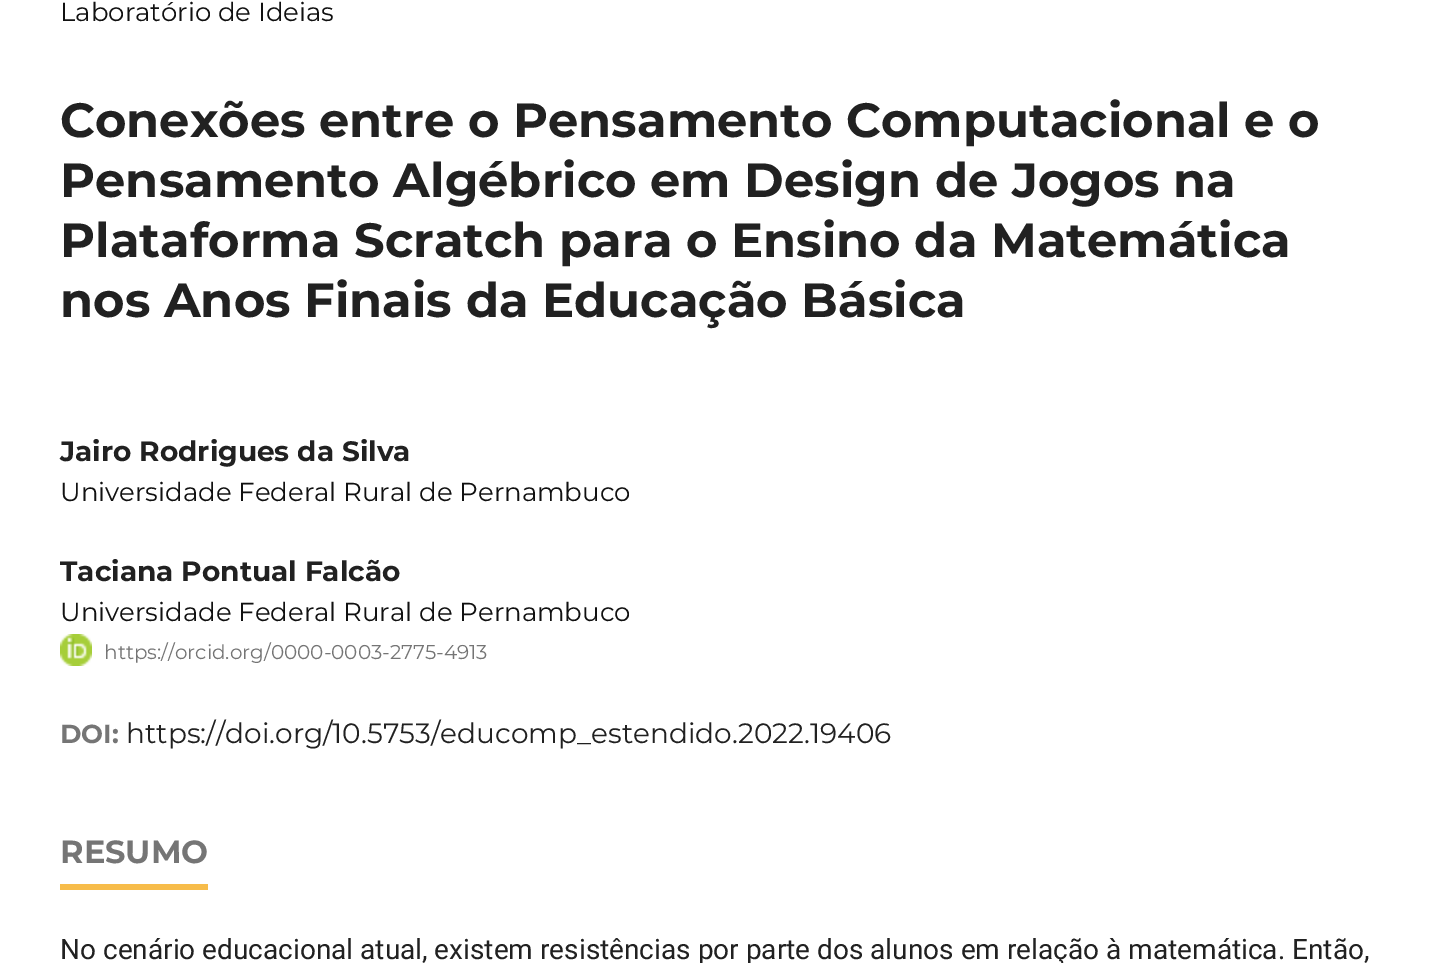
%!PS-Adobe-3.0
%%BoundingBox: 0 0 1445 963
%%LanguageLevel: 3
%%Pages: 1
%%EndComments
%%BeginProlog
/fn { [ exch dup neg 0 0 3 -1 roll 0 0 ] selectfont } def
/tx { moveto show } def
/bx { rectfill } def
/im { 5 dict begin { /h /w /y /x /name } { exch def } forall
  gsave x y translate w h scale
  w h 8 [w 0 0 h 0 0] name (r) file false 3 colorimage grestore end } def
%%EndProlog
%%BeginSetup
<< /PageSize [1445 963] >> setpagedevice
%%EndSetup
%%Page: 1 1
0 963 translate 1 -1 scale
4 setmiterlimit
1 setgray
0 0 1445 963 bx
/Montserrat-Regular 26 fn
0.067 setgray
(Laboratório de Ideias) 60 21 tx
/Montserrat-Bold 48 fn
0.129 setgray
(Conexões entre o Pensamento Computacional e o) 60 137 tx
(Pensamento Algébrico em Design de Jogos na) 60 197 tx
(Plataforma Scratch para o Ensino da Matemática) 60 257 tx
(nos Anos Finais da Educação Básica) 60 317 tx
/Montserrat-Bold 28 fn
(Jairo Rodrigues da Silva) 60 461 tx
/Montserrat-Regular 26 fn
0.067 setgray
(Universidade Federal Rural de Pernambuco) 60 501 tx
/Montserrat-Bold 28 fn
0.129 setgray
(Taciana Pontual Falcão) 60 581 tx
/Montserrat-Regular 26 fn
0.067 setgray
(Universidade Federal Rural de Pernambuco) 60 621 tx
(image0.raw) 60 634 32 32 im
/Montserrat-Regular 20 fn
0.459 setgray
(https://orcid.org/0000-0003-2775-4913) 104 659 tx
/Montserrat-Bold 26 fn
(DOI:) 60 743 tx
/Montserrat-Regular 28 fn
0.129 setgray
(https://doi.org/10.5753/educomp_estendido.2022.19406) 126 743 tx
0.969 0.737 0.29 setrgbcolor
60 884 148 6 bx
/Montserrat-Bold 32 fn
0.459 setgray
(RESUMO) 60 863 tx
/Roboto-Regular 28 fn
0.129 setgray
(No cenário educacional atual, existem resistências por parte dos alunos em relação à matemática. Então,) 60 959 tx
showpage
%%EOF
